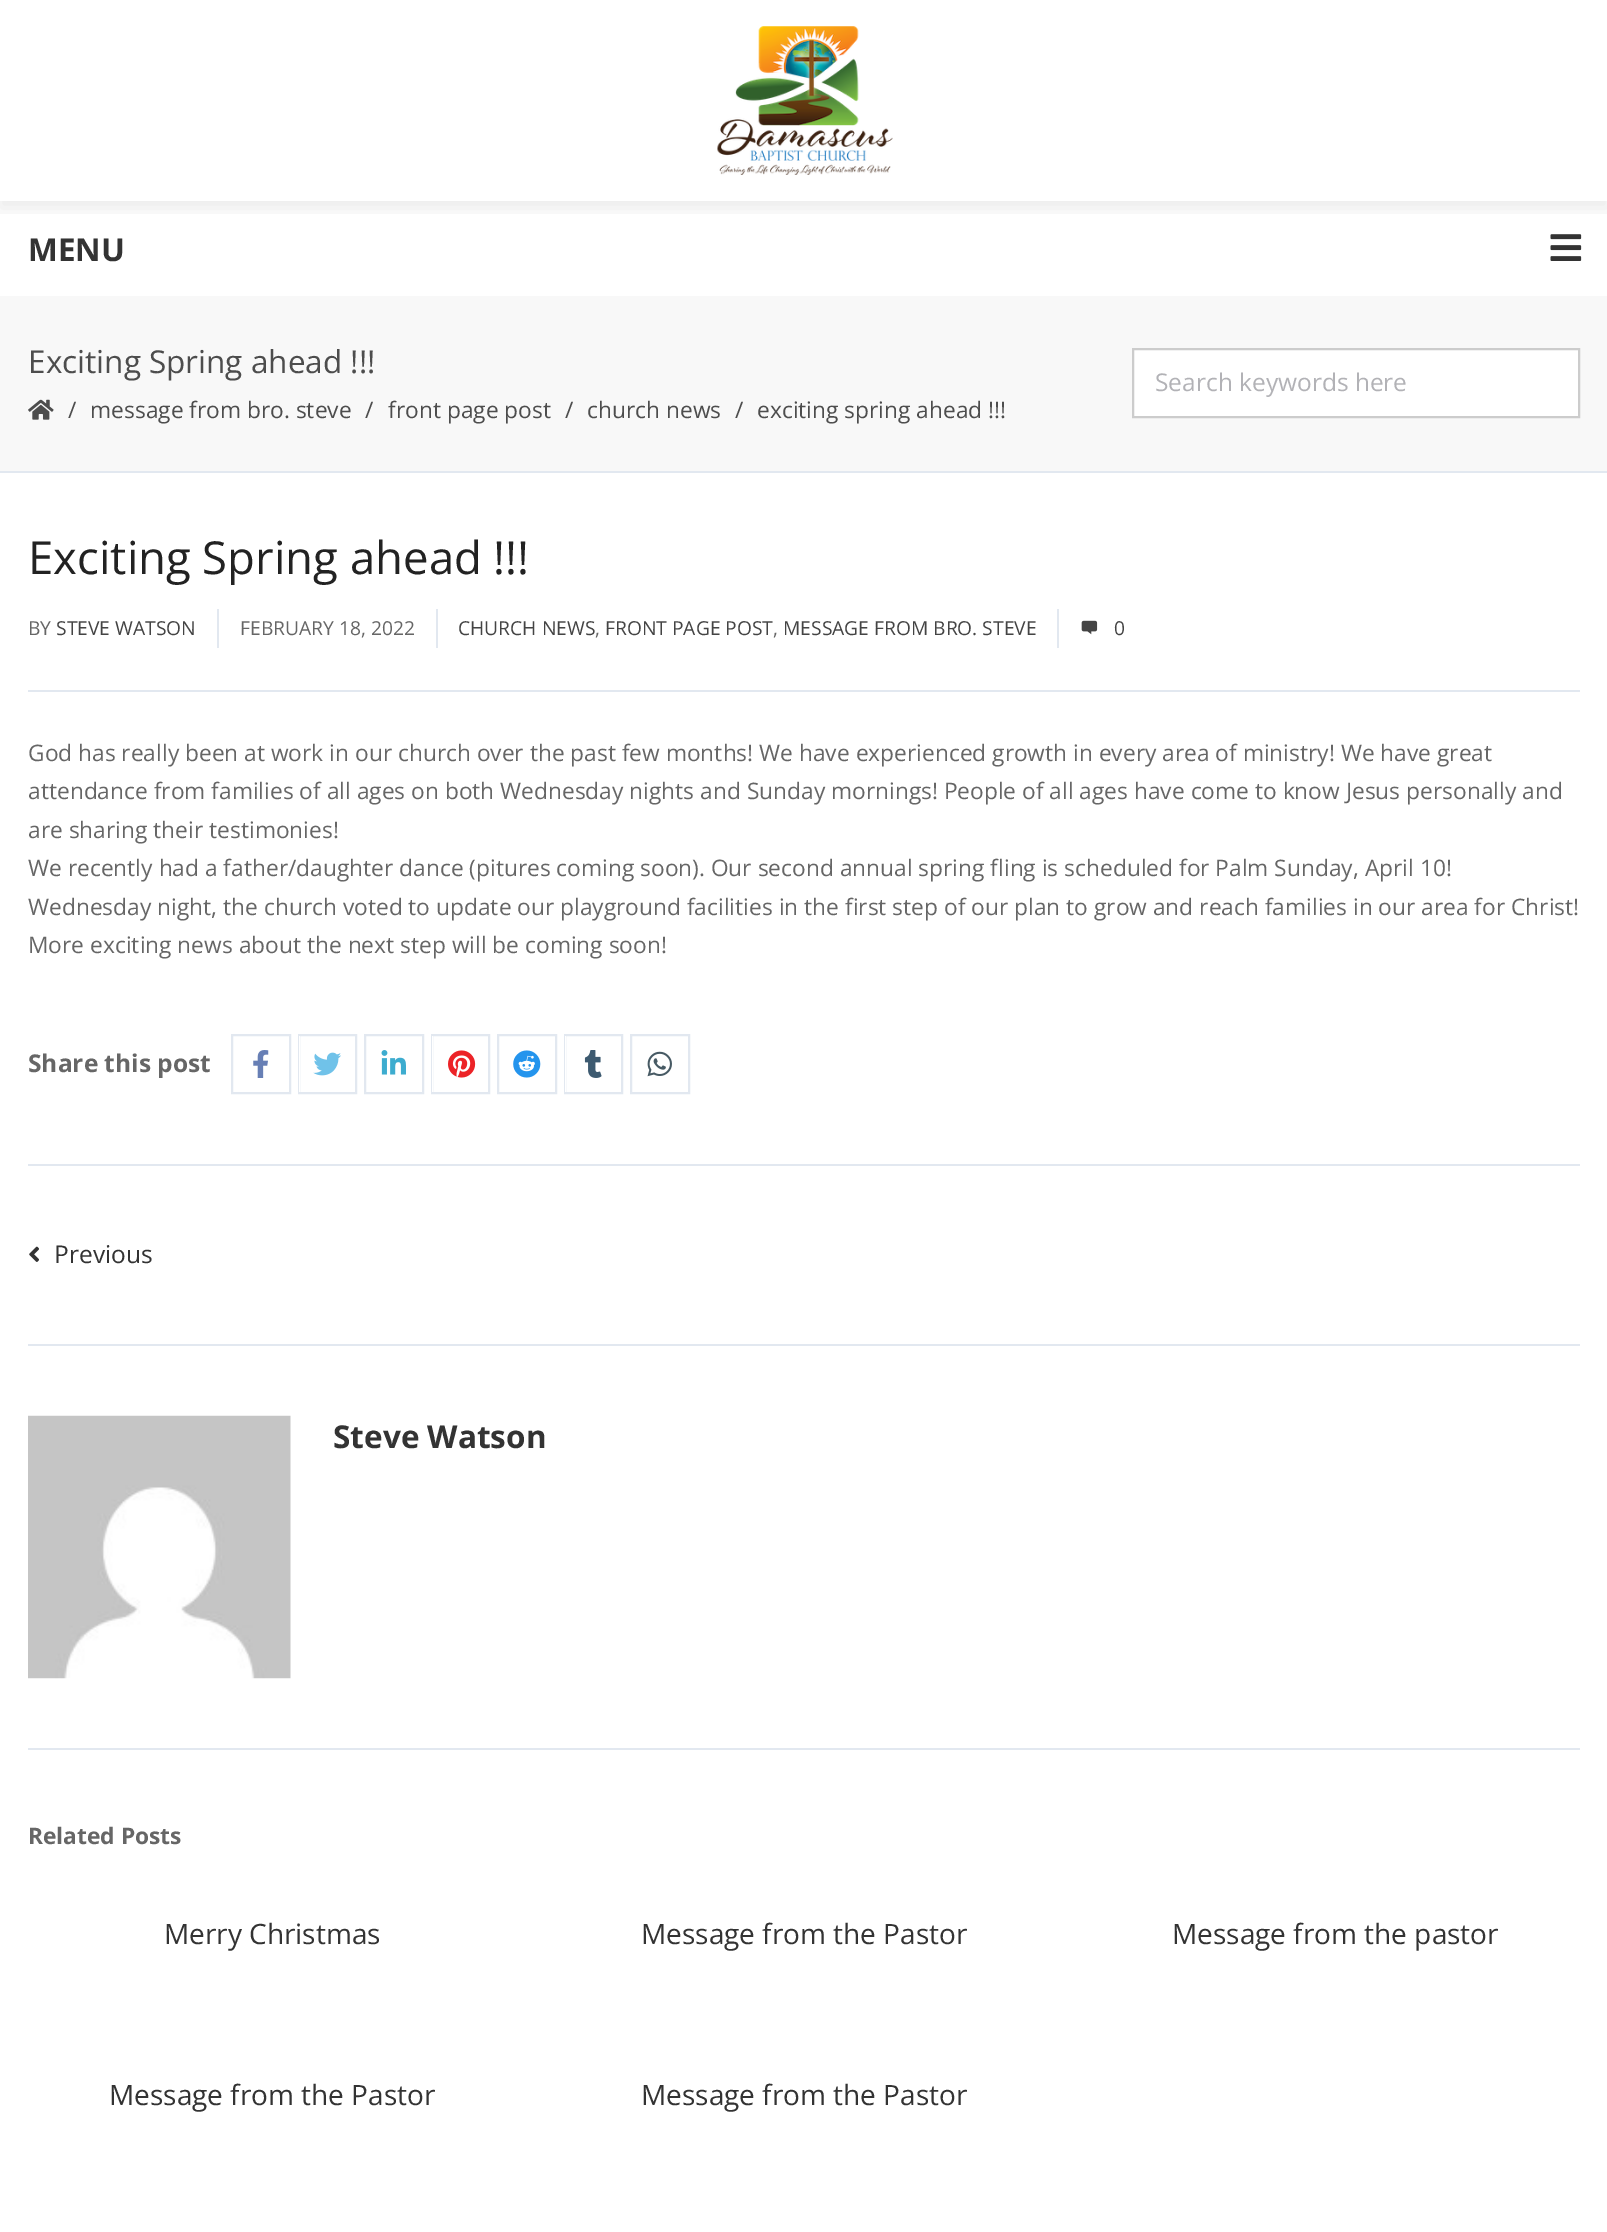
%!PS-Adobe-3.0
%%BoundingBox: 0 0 1607 2232
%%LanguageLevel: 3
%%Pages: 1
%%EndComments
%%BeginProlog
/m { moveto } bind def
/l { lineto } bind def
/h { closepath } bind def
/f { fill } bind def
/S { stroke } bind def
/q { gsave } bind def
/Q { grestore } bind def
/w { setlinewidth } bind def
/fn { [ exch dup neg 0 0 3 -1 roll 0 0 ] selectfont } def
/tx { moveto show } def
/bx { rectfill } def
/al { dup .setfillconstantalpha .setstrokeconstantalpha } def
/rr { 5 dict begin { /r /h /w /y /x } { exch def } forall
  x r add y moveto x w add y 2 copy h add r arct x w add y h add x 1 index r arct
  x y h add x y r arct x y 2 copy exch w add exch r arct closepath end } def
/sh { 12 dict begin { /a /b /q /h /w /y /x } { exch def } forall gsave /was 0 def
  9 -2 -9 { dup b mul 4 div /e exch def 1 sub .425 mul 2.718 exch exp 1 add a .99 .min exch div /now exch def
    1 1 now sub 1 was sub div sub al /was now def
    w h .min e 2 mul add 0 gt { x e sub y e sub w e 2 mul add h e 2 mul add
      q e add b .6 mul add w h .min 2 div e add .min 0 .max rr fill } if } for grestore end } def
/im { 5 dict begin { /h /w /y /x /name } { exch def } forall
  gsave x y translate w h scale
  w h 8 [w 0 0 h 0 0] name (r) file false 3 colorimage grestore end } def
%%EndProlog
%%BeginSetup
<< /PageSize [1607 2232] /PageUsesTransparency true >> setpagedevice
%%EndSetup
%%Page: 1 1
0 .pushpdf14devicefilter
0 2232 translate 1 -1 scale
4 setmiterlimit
1 setgray
0 0 1607 2232 bx
(image1.raw) 1550 234 32 27 im
q
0 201 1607 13 rectclip
0 setgray
0 7 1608 201 0 9 0.08 sh
Q
(image0.raw) 717 26 176 149 im
/OpenSans-Bold 31.5 fn
0.2 setgray
(MENU) 28 261 tx
0.973 setgray
0 296 1607 175 bx
0.886 0.91 0.941 setrgbcolor
0 471 1607 2 bx
/OpenSans-Regular 31.5 fn
0.302 setgray
(Exciting Spring ahead !!!) 28 373 tx
(image2.raw) 28 399 26 21 im
/OpenSans-Regular 22.75 fn
(/) 68 418 tx
(message from bro. steve) 90 418 tx
(/) 365 418 tx
(front page post) 388 418 tx
(/) 565 418 tx
(church news) 587 418 tx
(/) 735 418 tx
(exciting spring ahead !!!) 757 418 tx
1 setgray
1133 349 m 1579 349 l 1579 417 l 1133 417 l h q f Q
0.8 setgray
2 w
S
/OpenSans-Regular 24.5 fn
0.698 0.698 0.714 setrgbcolor
(Search keywords here) 1155 391 tx
0.886 0.91 0.941 setrgbcolor
28 1164 1552 2 bx
/OpenSans-Regular 45.5 fn
0.133 setgray
(Exciting Spring ahead !!!) 28 574 tx
0.886 0.91 0.941 setrgbcolor
28 690 1552 2 bx
217 609 2 39 bx
/OpenSans-Regular 19.25 fn
0.4 setgray
(BY) 28 635 tx
0.267 setgray
(STEVE WATSON) 56 635 tx
0.886 0.91 0.941 setrgbcolor
436 609 2 39 bx
0.4 setgray
(FEBRUARY 18, 2022) 240 635 tx
0.886 0.91 0.941 setrgbcolor
1057 609 2 39 bx
0.267 setgray
(CHURCH NEWS) 458 635 tx
0.4 setgray
(,) 595 635 tx
0.267 setgray
(FRONT PAGE POST) 605 635 tx
0.4 setgray
(,) 773 635 tx
0.267 setgray
(MESSAGE FROM BRO. STEVE) 783 635 tx
(image3.raw) 1081 620 17 15 im
(0) 1114 635 tx
/OpenSans-Regular 22.75 fn
0.4 setgray
(God has really been at work in our church over the past few months! We have experienced growth in every area of ministry! We have great) 28 761 tx
(attendance from families of all ages on both Wednesday nights and Sunday mornings! People of all ages have come to know Jesus personally and) 28 799 tx
(are sharing their testimonies!) 28 838 tx
(We recently had a father/daughter dance \(pitures coming soon\). Our second annual spring fling is scheduled for Palm Sunday, April 10!) 28 876 tx
(Wednesday night, the church voted to update our playground facilities in the first step of our plan to grow and reach families in our area for Christ!) 28 915 tx
(More exciting news about the next step will be coming soon!) 28 953 tx
/OpenSans-Bold 24.5 fn
(Share this post) 28 1072 tx
0.886 0.91 0.941 setrgbcolor
232 1035 58 58 rectstroke
(image4.raw) 253 1050 16 28 im
299 1035 57 58 rectstroke
1 setgray
299 1036 1 56 bx
(image5.raw) 313 1052 28 24 im
0.886 0.91 0.941 setrgbcolor
365 1035 58 58 rectstroke
(image6.raw) 381 1050 25 25 im
432 1035 57 58 rectstroke
1 setgray
432 1036 1 56 bx
(image7.raw) 448 1050 28 28 im
0.886 0.91 0.941 setrgbcolor
498 1035 58 58 rectstroke
(image8.raw) 513 1050 28 28 im
565 1035 57 58 rectstroke
1 setgray
565 1036 1 56 bx
(image9.raw) 584 1050 18 28 im
0.886 0.91 0.941 setrgbcolor
631 1035 58 58 rectstroke
(image10.raw) 647 1051 25 26 im
28 1344 1552 2 bx
(image11.raw) 29 1246 10 16 im
/OpenSans-Regular 24.5 fn
0.2 setgray
(Previous) 54 1263 tx
0.886 0.91 0.941 setrgbcolor
28 1748 1552 2 bx
(image12.raw) 28 1415 263 264 im
/OpenSans-Bold 31.5 fn
0.2 setgray
(Steve Watson) 333 1448 tx
/OpenSans-Bold 22.75 fn
0.4 setgray
(Related Posts) 28 1844 tx
/OpenSans-Regular 28 fn
0.2 setgray
(Merry Christmas) 164 1944 tx
(Message from the Pastor) 641 1944 tx
(Message from the pastor) 1172 1944 tx
(Message from the Pastor) 109 2105 tx
(Message from the Pastor) 641 2105 tx
.poppdf14devicefilter showpage
%%EOF
